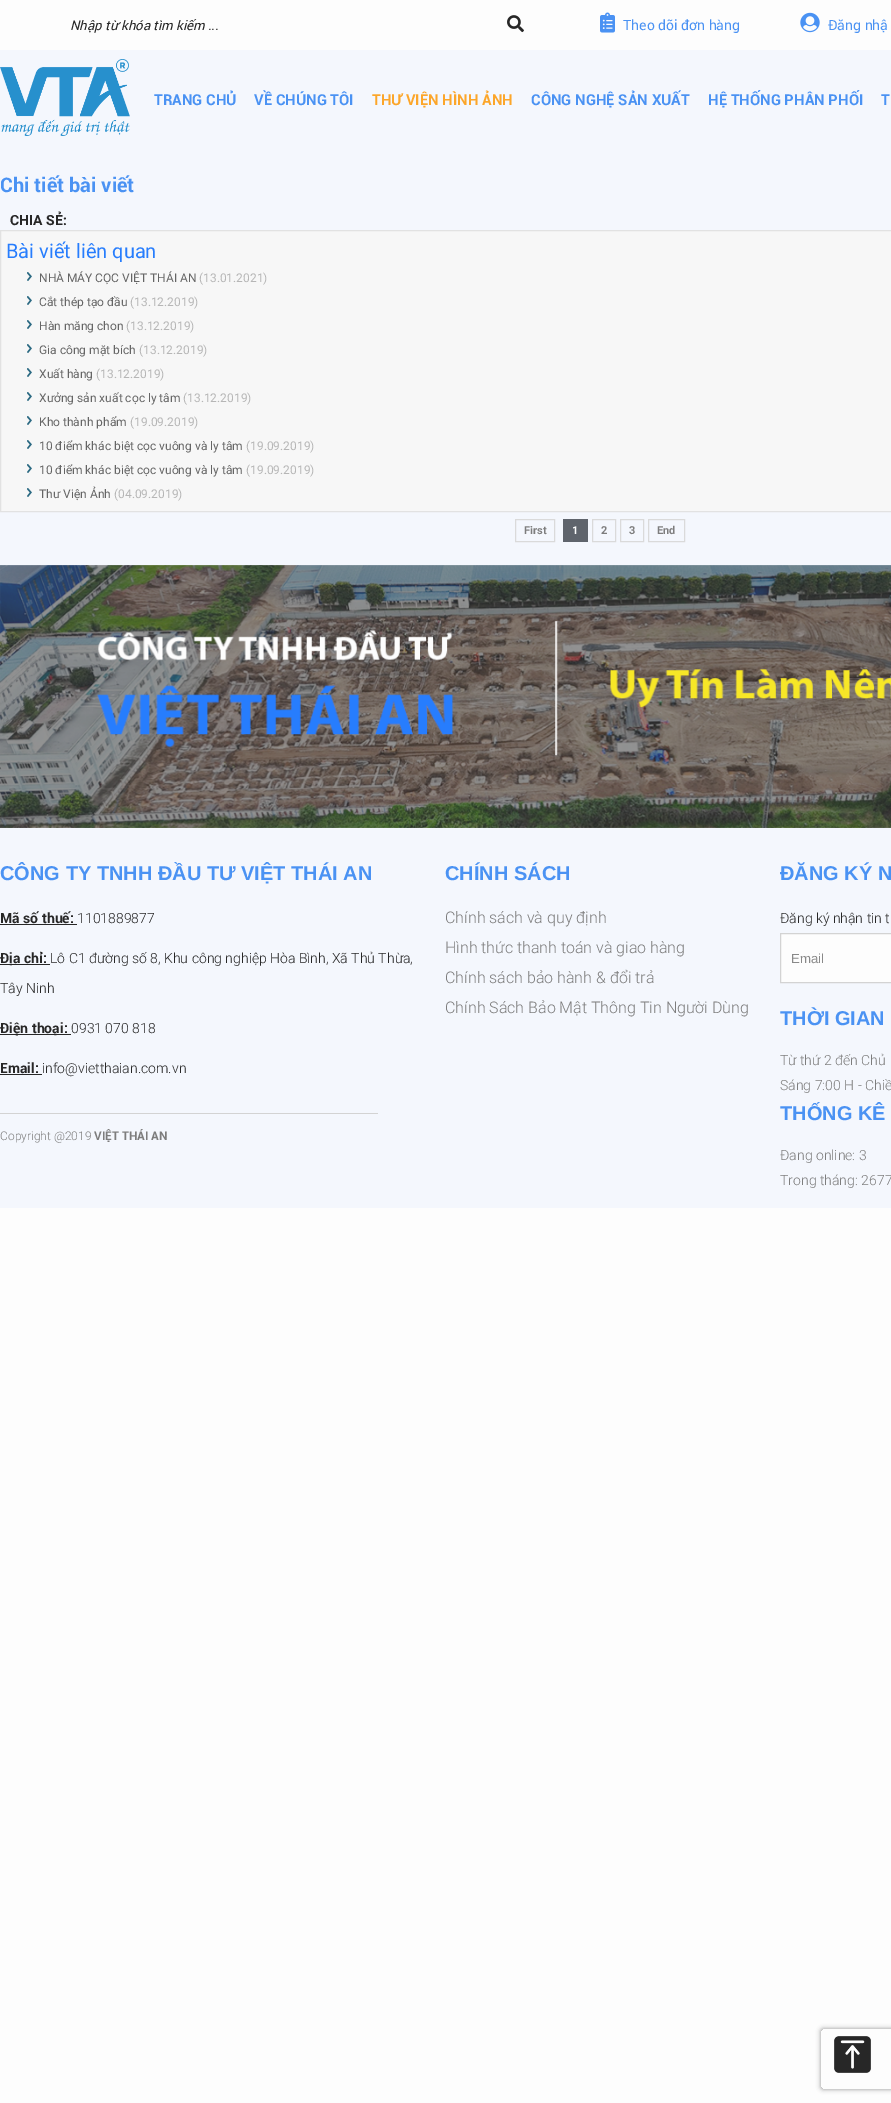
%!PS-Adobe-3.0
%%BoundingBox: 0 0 891 2103
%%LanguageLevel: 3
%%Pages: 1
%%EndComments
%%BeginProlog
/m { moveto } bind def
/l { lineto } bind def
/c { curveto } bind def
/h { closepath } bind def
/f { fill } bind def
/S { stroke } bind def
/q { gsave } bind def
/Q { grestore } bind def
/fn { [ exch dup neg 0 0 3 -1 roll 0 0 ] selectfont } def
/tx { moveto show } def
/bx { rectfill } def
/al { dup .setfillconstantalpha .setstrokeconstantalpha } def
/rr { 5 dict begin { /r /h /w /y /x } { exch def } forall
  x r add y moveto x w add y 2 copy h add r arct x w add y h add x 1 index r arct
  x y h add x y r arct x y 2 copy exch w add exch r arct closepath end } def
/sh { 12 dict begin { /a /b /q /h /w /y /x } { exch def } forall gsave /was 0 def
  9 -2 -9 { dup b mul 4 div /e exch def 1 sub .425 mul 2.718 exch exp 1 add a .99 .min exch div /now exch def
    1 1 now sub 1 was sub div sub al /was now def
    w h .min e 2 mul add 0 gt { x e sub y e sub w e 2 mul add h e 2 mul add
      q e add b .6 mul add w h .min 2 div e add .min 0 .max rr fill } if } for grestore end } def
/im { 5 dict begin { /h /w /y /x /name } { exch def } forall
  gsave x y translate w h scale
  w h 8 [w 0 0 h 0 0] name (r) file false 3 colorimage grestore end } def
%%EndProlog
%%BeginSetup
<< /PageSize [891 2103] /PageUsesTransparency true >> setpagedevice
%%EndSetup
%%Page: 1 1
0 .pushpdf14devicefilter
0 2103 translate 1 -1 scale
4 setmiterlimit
0.992 setgray
0 0 891 2103 bx
0.957 0.969 0.992 setrgbcolor
0 50 891 1158 bx
/Roboto-Italic 13.25 fn
0.153 setgray
(Nhập từ khóa tìm kiếm ...) 70 30 tx
(image0.raw) 507 15 17 18 im
(image1.raw) 600 12 15 21 im
/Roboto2-Regular 14 fn
0.29 0.573 0.953 setrgbcolor
(Theo dõi đơn hàng) 623 30 tx
(image2.raw) 800 12 20 21 im
(Đăng nhậ) 828 30 tx
(image3.raw) 0 59 130 77 im
/Roboto-Bold 15 fn
(TRANG CHỦ) 154 105 tx
(VỀ CHÚNG TÔI) 254 105 tx
0.988 0.651 0.165 setrgbcolor
(THƯ VIỆN HÌNH ẢNH) 372 105 tx
0.29 0.573 0.953 setrgbcolor
(CÔNG NGHỆ SẢN XUẤT) 531 105 tx
(HỆ THỐNG PHÂN PHỐI) 708 105 tx
(T) 881 105 tx
/Roboto-Bold 20 fn
(Chi tiết bài viết) 0 192 tx
/Roboto2-Bold 14 fn
0.153 setgray
(CHIA SẺ:) 10 225 tx
0.969 setgray
0.5 230.5 m 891.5 230.5 l 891.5 511.5 l 0.5 511.5 l h q f Q
0.886 setgray
S
/Roboto-Regular 20 fn
0.153 0.49 0.992 setrgbcolor
(Bài viết liên quan) 6 258 tx
(image4.raw) 27 272 5 9 im
/Roboto-Regular 12 fn
0.396 setgray
(NHÀ MÁY CỌC VIỆT THÁI AN) 39 282 tx
0.714 setgray
(\(13.01.2021\)) 199 282 tx
(image4.raw) 27 296 5 9 im
0.396 setgray
(Cắt thép tạo đầu) 39 306 tx
0.714 setgray
(\(13.12.2019\)) 130 306 tx
(image4.raw) 27 320 5 9 im
0.396 setgray
(Hàn măng chon) 39 330 tx
0.714 setgray
(\(13.12.2019\)) 126 330 tx
(image4.raw) 27 344 5 9 im
0.396 setgray
(Gia công mặt bích) 39 354 tx
0.714 setgray
(\(13.12.2019\)) 139 354 tx
(image4.raw) 27 368 5 9 im
0.396 setgray
(Xuất hàng) 39 378 tx
0.714 setgray
(\(13.12.2019\)) 96 378 tx
(image4.raw) 27 392 5 9 im
0.396 setgray
(Xưởng sản xuất cọc ly tâm) 39 402 tx
0.714 setgray
(\(13.12.2019\)) 183 402 tx
(image4.raw) 27 416 5 9 im
0.396 setgray
(Kho thành phẩm) 39 426 tx
0.714 setgray
(\(19.09.2019\)) 130 426 tx
(image4.raw) 27 440 5 9 im
0.396 setgray
(10 điểm khác biệt cọc vuông và ly tâm) 39 450 tx
0.714 setgray
(\(19.09.2019\)) 246 450 tx
(image4.raw) 27 464 5 9 im
0.396 setgray
(10 điểm khác biệt cọc vuông và ly tâm) 39 474 tx
0.714 setgray
(\(19.09.2019\)) 246 474 tx
(image4.raw) 27 488 5 9 im
0.396 setgray
(Thư Viện Ảnh) 39 498 tx
0.714 setgray
(\(04.09.2019\)) 114 498 tx
0.855 setgray
515.5 519.5 39 22 rectstroke
/Roboto2-Bold 11 fn
0.49 setgray
(First) 524 534 tx
0.373 0.392 0.424 setrgbcolor
563 519 25 23 bx
0.992 setgray
(1) 572 534 tx
0.855 setgray
592.5 519.5 23 22 rectstroke
0.49 setgray
(2) 601 534 tx
0.855 setgray
620.5 519.5 23 22 rectstroke
0.49 setgray
(3) 629 534 tx
0.855 setgray
648.5 519.5 36 22 rectstroke
0.49 setgray
(End) 657 534 tx
(image5.raw) 0 565 891 263 im
/LiberationSans-Bold 20 fn
0.29 0.573 0.953 setrgbcolor
(CÔNG TY TNHH ĐẦU TƯ VIỆT THÁI AN) 0 880 tx
/Roboto-Bold 14 fn
0.153 setgray
(Mã số thuế:) 0 923 tx
0 924 77 1 bx
/Roboto-Light 14 fn
(1101889877) 77 923 tx
0 964 50 1 bx
/Roboto-Bold 14 fn
(Địa chỉ:) 0 963 tx
/Roboto-Light 14 fn
(Lô C1 đường số 8, Khu công nghiệp Hòa Bình, Xã Thủ Thừa,) 50 963 tx
(Tây Ninh) 0 993 tx
0 1034 71 1 bx
/Roboto-Bold 14 fn
(Điện thoại:) 0 1033 tx
/Roboto-Light 14 fn
(0931 070 818) 71 1033 tx
/Roboto-Bold 14 fn
(Email:) 0 1073 tx
0 1074 42 1 bx
/Roboto-Light 14 fn
(info@vietthaian.com.vn) 42 1073 tx
0.827 setgray
0 1113 378 1 bx
/Roboto-Light 12 fn
0.49 setgray
(Copyright @2019) 0 1140 tx
/Roboto-Bold 12 fn
(VIỆT THÁI AN) 94 1140 tx
/LiberationSans-Bold 20 fn
0.29 0.573 0.953 setrgbcolor
(CHÍNH SÁCH) 445 880 tx
/Roboto-Light 16 fn
0.49 setgray
(Chính sách và quy định) 445 923 tx
(Hình thức thanh toán và giao hàng) 445 953 tx
(Chính sách bảo hành & đổi trả) 445 983 tx
(Chính Sách Bảo Mật Thông Tin Người Dùng) 445 1013 tx
/LiberationSans-Bold 20 fn
0.29 0.573 0.953 setrgbcolor
(ĐĂNG KÝ N) 780 880 tx
/Roboto-Light 14 fn
0.153 setgray
(Đăng ký nhận tin t) 780 923 tx
0.992 setgray
780.5 933.5 m 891.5 933.5 l 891.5 982.5 l 780.5 982.5 l h q f Q
0.827 setgray
S
/LiberationSans-Regular 13.25 fn
0.537 setgray
(Email) 791 963 tx
/LiberationSans-Bold 20 fn
0.29 0.573 0.953 setrgbcolor
(THỜI GIAN) 780 1025 tx
/Roboto-Light 14 fn
0.49 setgray
(Từ thứ 2 đến Chủ) 780 1065 tx
(Sáng 7:00 H - Chiề) 780 1090 tx
/LiberationSans-Bold 20 fn
0.29 0.573 0.953 setrgbcolor
(THỐNG KÊ) 780 1120 tx
/Roboto-Light 14 fn
0.49 setgray
(Đang online: 3) 780 1160 tx
(Trong tháng: 2677) 780 1185 tx
q
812 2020 m 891 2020 l 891 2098 l 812 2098 l h 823 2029 m 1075 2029 l 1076 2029 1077 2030 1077 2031 c 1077 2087 l 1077 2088 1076 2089 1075 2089 c 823 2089 l 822 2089 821 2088 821 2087 c 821 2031 l 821 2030 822 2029 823 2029 c h eoclip newpath
0.576 setgray
821 2029 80 60 2 2.5 1 sh
Q
(image6.raw) 834 2036 37 37 im
.poppdf14devicefilter showpage
%%EOF
